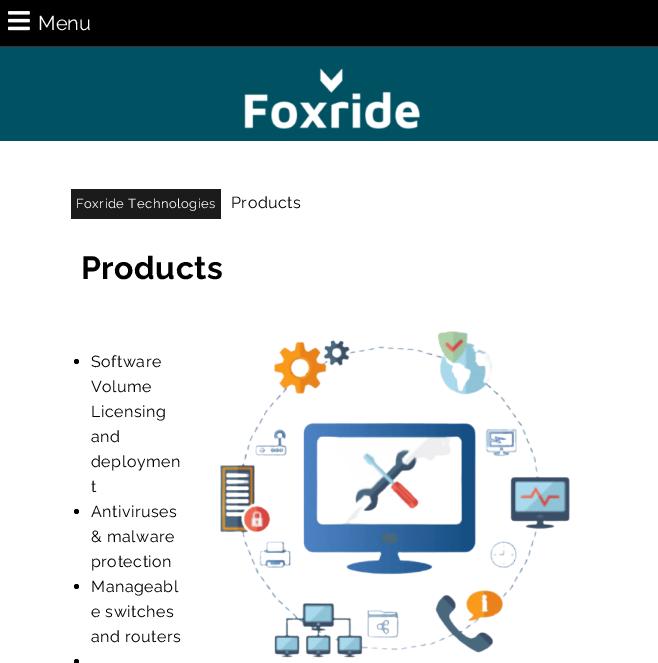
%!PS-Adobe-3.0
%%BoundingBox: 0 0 658 663
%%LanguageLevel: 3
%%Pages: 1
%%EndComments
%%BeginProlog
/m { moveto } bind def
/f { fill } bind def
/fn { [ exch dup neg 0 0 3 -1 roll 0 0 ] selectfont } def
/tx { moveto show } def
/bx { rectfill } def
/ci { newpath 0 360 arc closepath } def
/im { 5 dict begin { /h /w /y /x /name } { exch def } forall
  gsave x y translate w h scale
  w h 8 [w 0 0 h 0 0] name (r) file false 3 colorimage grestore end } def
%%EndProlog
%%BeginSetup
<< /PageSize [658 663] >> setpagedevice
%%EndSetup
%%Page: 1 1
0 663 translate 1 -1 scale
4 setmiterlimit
1 setgray
0 0 658 663 bx
0 0.322 0.388 setrgbcolor
0 47 658 94 bx
0 setgray
0 0 658 46 bx
0.2 setgray
0 46 658 1 bx
(image0.raw) 8 11 22 20 im
/Raleway-Regular 20 fn
1 setgray
(Menu) 38 30 tx
(image1.raw) 244 68 176 61 im
0.106 setgray
71 189 150 30 bx
/Raleway-Regular 13 fn
1 setgray
76 208 m 0.5 0 (Foxride Technologies) ashow
/Raleway-Regular 16 fn
0 setgray
231 208 m 0.5 0 (Products) ashow
/Raleway-Bold 32 fn
81 279 m 0.5 0 (Products) ashow
76.5 361.5 2.5 ci f
/Raleway-Regular 16 fn
91 367 m 0.5 0 (Software) ashow
91 392 m 0.5 0 (Volume) ashow
91 417 m 0.5 0 (Licensing) ashow
91 442 m 0.5 0 (and) ashow
91 467 m 0.5 0 (deploymen) ashow
91 492 m 0.5 0 (t) ashow
76.5 511.5 2.5 ci f
91 517 m 0.5 0 (Antiviruses) ashow
91 542 m 0.5 0 (& malware) ashow
91 567 m 0.5 0 (protection) ashow
76.5 586.5 2.5 ci f
91 592 m 0.5 0 (Manageabl) ashow
91 617 m 0.5 0 (e switches) ashow
91 642 m 0.5 0 (and routers) ashow
76.5 661.5 2.5 ci f
(image2.raw) 220 331 350 327 im
showpage
%%EOF
